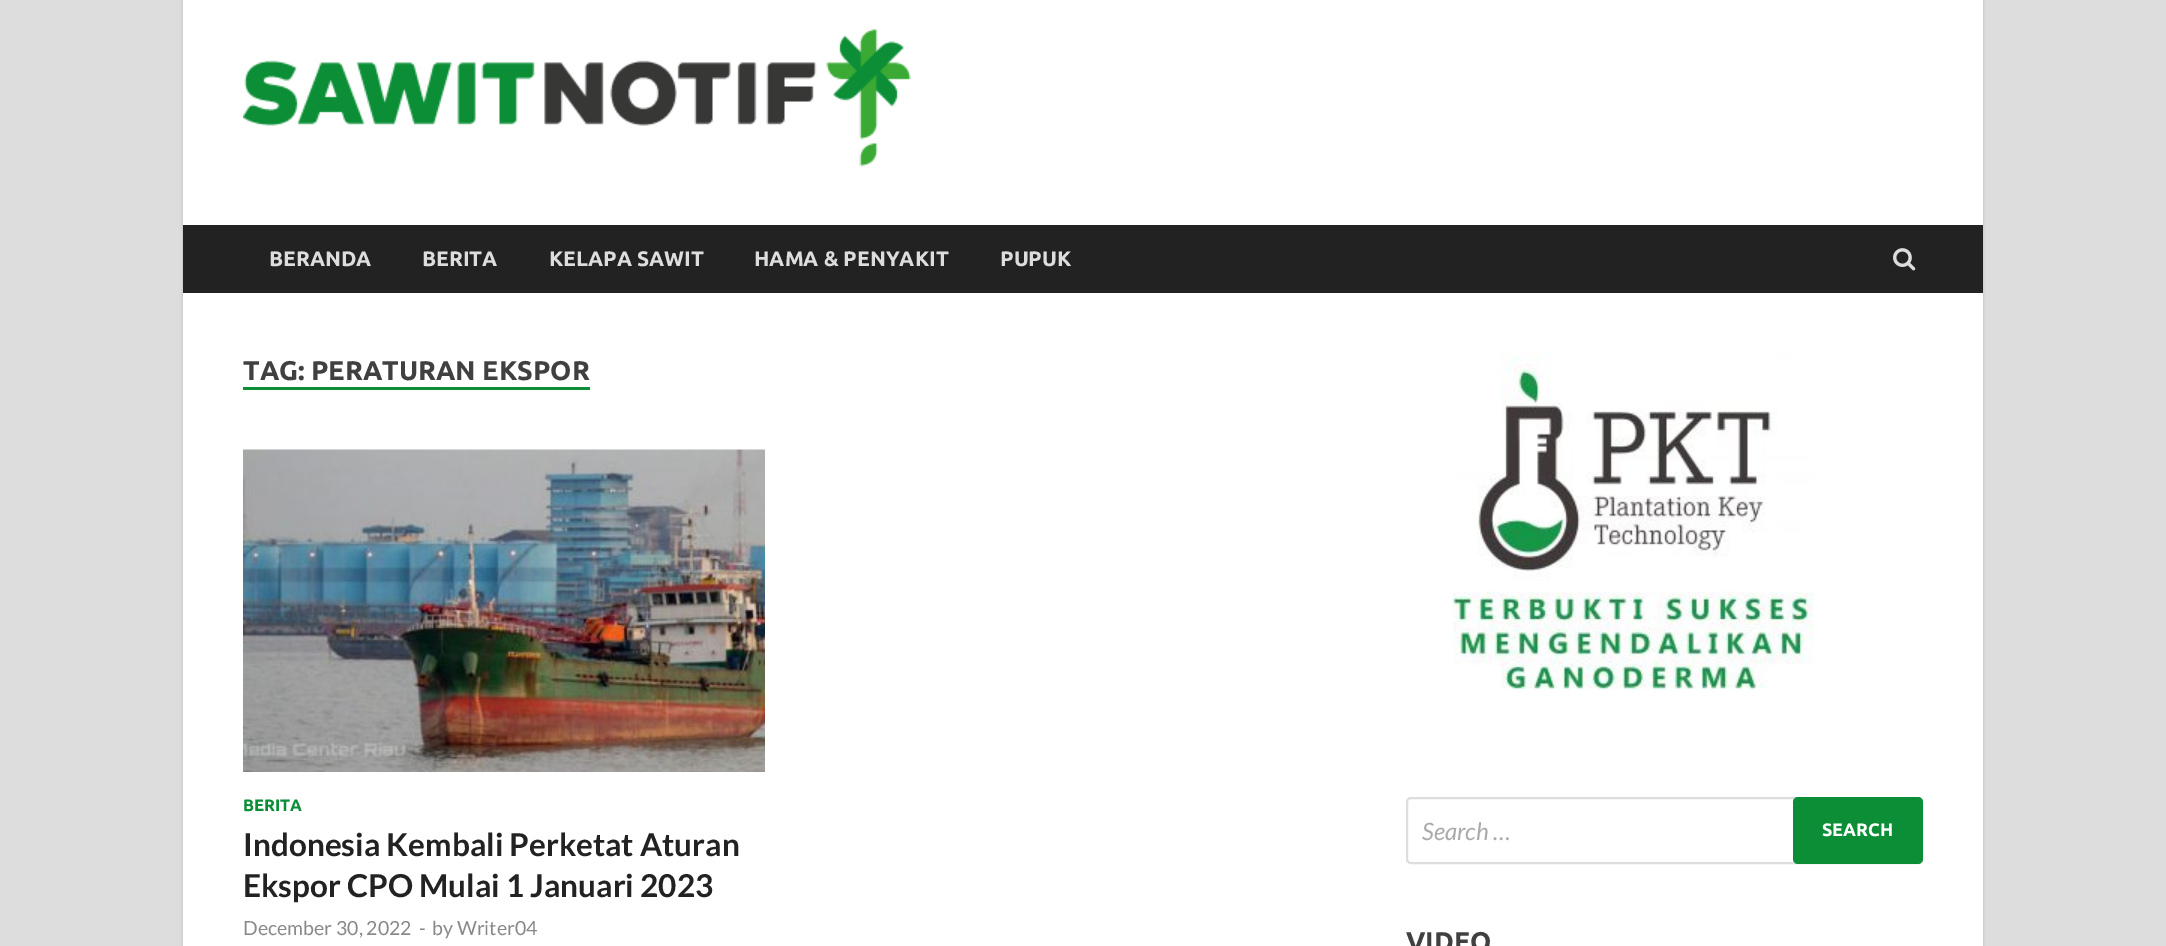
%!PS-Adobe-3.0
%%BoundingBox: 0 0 2166 946
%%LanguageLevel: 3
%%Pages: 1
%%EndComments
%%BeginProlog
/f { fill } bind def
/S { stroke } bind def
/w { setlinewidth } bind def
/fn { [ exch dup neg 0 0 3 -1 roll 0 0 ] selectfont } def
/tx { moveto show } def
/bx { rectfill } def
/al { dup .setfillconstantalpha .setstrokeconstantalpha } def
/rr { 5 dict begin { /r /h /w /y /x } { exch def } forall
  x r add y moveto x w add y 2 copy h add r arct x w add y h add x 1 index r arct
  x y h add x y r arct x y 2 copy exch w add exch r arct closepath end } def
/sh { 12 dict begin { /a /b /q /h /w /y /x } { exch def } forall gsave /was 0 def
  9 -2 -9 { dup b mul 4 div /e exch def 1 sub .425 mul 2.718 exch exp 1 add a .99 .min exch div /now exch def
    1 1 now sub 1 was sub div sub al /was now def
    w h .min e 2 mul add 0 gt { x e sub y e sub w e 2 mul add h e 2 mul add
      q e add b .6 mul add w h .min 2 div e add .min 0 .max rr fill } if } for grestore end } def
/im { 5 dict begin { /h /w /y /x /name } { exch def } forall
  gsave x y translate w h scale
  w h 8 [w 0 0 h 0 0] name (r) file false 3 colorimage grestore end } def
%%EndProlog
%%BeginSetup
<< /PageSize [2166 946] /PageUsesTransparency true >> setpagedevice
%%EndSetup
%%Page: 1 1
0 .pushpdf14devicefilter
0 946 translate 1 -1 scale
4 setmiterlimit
0.867 setgray
0 0 2166 946 bx
0.733 setgray
183 -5 1800 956 0 1.5 1 sh
1 setgray
183 0 1800 946 bx
(image0.raw) 243 29 668 138 im
0.133 setgray
183 225 1800 68 bx
/Ubuntu-Bold 21 fn
0.867 setgray
(BERANDA) 269 266 tx
(BERITA) 422 266 tx
(KELAPA SAWIT) 549 266 tx
(HAMA & PENYAKIT) 754 266 tx
(PUPUK) 1000 266 tx
(image1.raw) 1893 248 23 23 im
/Ubuntu-Bold 27 fn
0.251 setgray
(TAG: PERATURAN EKSPOR) 243 380 tx
0.043 0.557 0.212 setrgbcolor
243 387 347 3 bx
(image2.raw) 243 449 522 323 im
/Ubuntu-Bold 16.5 fn
(BERITA) 243 811 tx
/Lato-Bold 31.5 fn
0.133 setgray
(Indonesia Kembali Perketat Aturan) 243 856 tx
(Ekspor CPO Mulai 1 Januari 2023) 243 897 tx
/Lato-Regular 19.5 fn
0.533 setgray
(December 30, 2022) 243 935 tx
(-) 419 935 tx
(by Writer04) 432 935 tx
(image3.raw) 1452 352 362 338 im
0.867 setgray
2 w
1407 798 515 65 4 rr S
/Lato-Italic 24 fn
0.667 setgray
(Search …) 1422 840 tx
0.043 0.557 0.212 setrgbcolor
1793 797 130 67 5 rr f
/Ubuntu-Bold 18 fn
1 setgray
(SEARCH) 1822 836 tx
/Ubuntu-Bold 27 fn
0.251 setgray
(VIDEO) 1406 951 tx
.poppdf14devicefilter showpage
%%EOF
